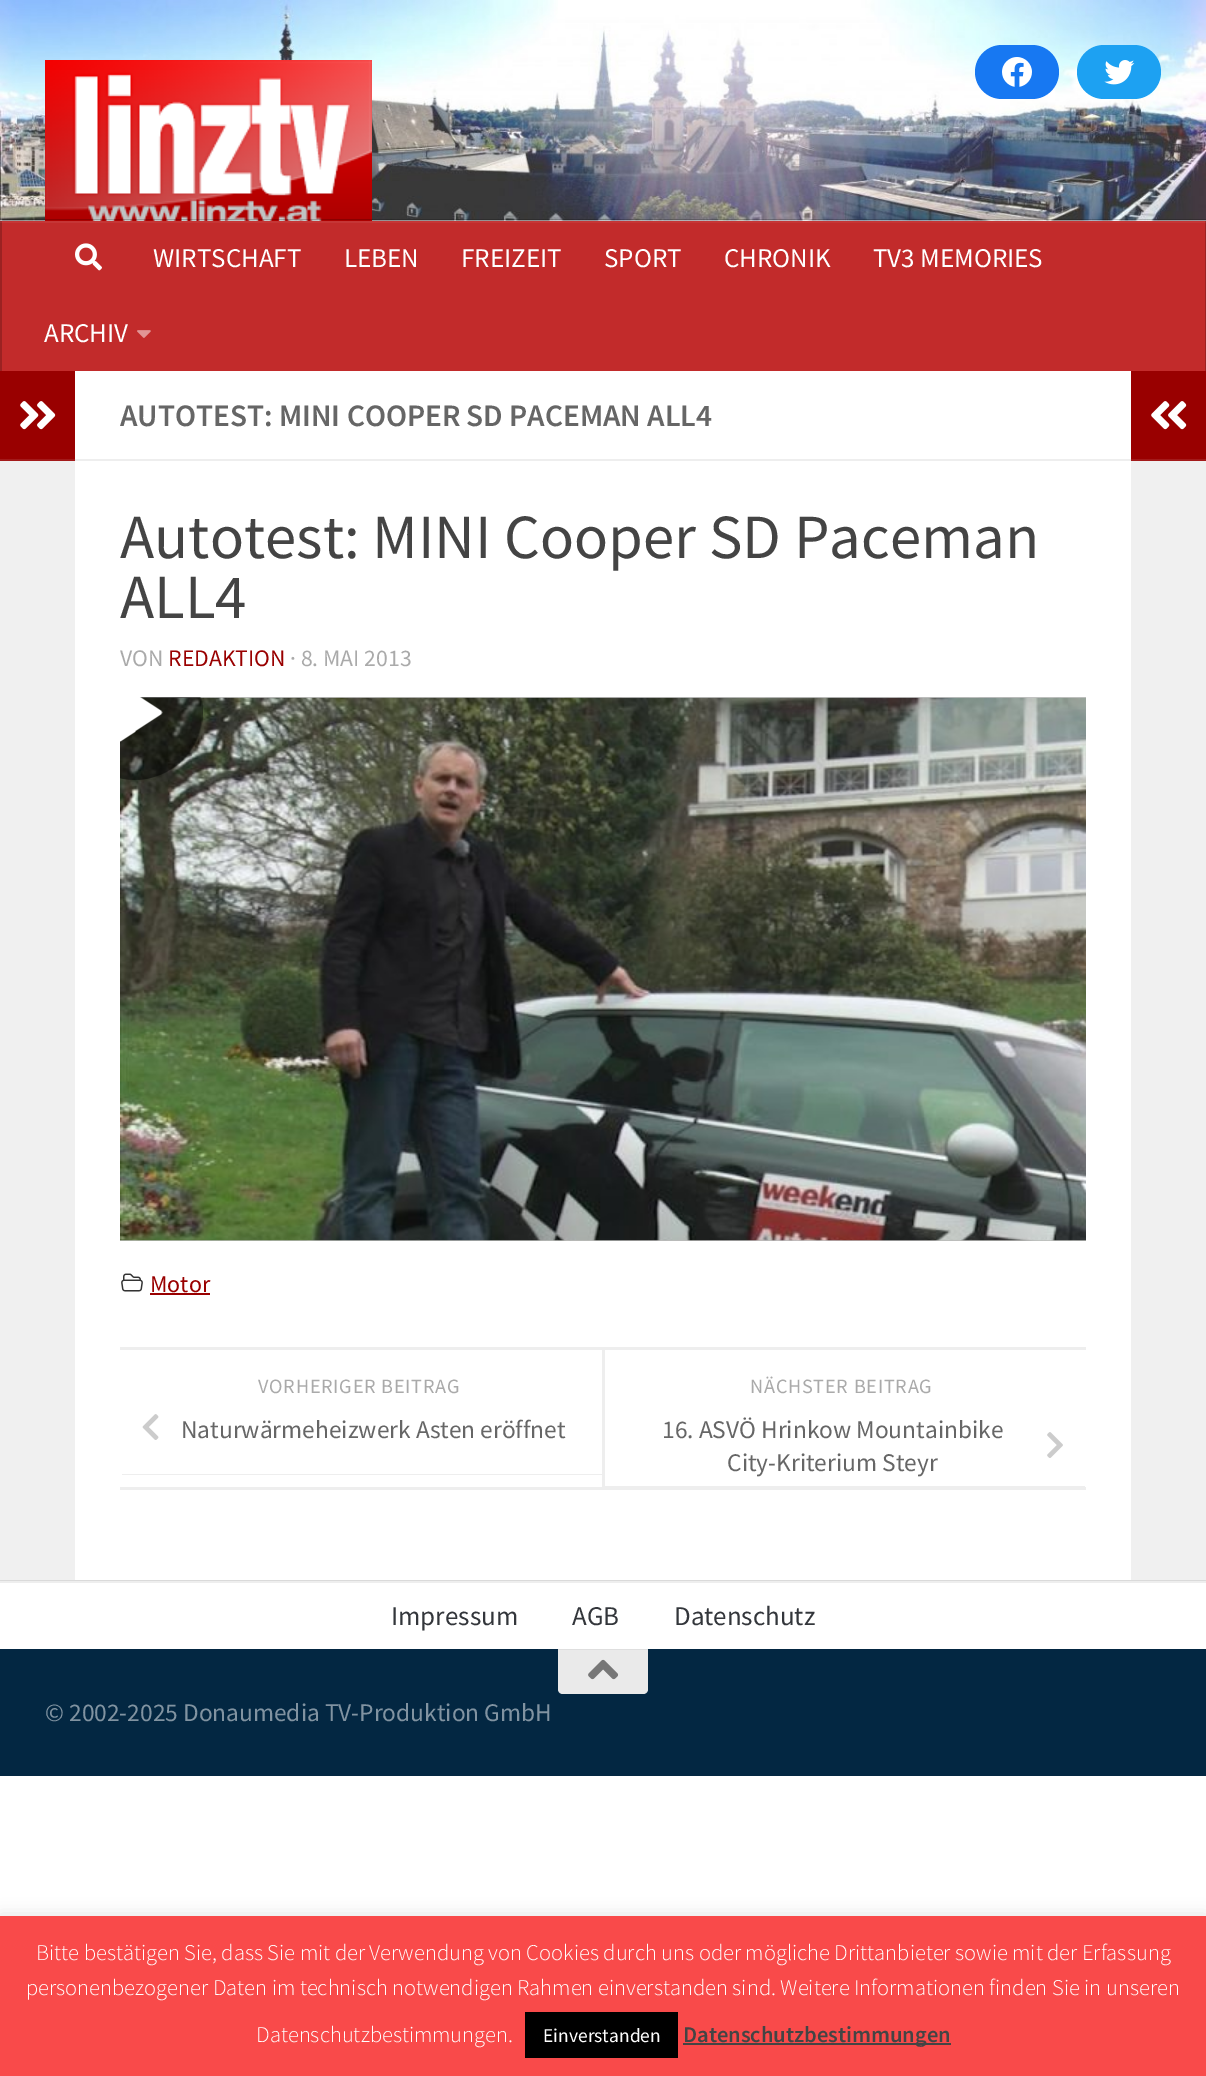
%!PS-Adobe-3.0
%%BoundingBox: 0 0 1206 2076
%%LanguageLevel: 3
%%Pages: 1
%%EndComments
%%BeginProlog
/m { moveto } bind def
/l { lineto } bind def
/c { curveto } bind def
/h { closepath } bind def
/f { fill } bind def
/fn { [ exch dup neg 0 0 3 -1 roll 0 0 ] selectfont } def
/tx { moveto show } def
/bx { rectfill } def
/al { dup .setfillconstantalpha .setstrokeconstantalpha } def
/rr { 5 dict begin { /r /h /w /y /x } { exch def } forall
  x r add y moveto x w add y 2 copy h add r arct x w add y h add x 1 index r arct
  x y h add x y r arct x y 2 copy exch w add exch r arct closepath end } def
/sh { 12 dict begin { /a /b /q /h /w /y /x } { exch def } forall gsave /was 0 def
  9 -2 -9 { dup b mul 4 div /e exch def 1 sub .425 mul 2.718 exch exp 1 add a .99 .min exch div /now exch def
    1 1 now sub 1 was sub div sub al /was now def
    w h .min e 2 mul add 0 gt { x e sub y e sub w e 2 mul add h e 2 mul add
      q e add b .6 mul add w h .min 2 div e add .min 0 .max rr fill } if } for grestore end } def
/im { 5 dict begin { /h /w /y /x /name } { exch def } forall
  gsave x y translate w h scale
  w h 8 [w 0 0 h 0 0] name (r) file false 3 colorimage grestore end } def
%%EndProlog
%%BeginSetup
<< /PageSize [1206 2076] /PageUsesTransparency true >> setpagedevice
%%EndSetup
%%Page: 1 1
0 .pushpdf14devicefilter
0 2076 translate 1 -1 scale
4 setmiterlimit
1 setgray
0 0 1206 2076 bx
0.941 setgray
0 220 1206 1 bx
(image0.raw) 0 0 1206 221 im
(image1.raw) 45 60 327 161 im
0.09 0.471 0.949 setrgbcolor
975 45 84 54 27 rr f
(image2.raw) 1002 57 30 30 im
0.114 0.631 0.949 setrgbcolor
1077 45 84 54 27 rr f
(image3.raw) 1104 60 31 25 im
0.2 al
0 setgray
0 219 1206 1 bx
1 al
0.918 setgray
0 1580 1206 1 bx
0 setgray
0 372 1206 1209 0 1 0.1 sh
0.761 0.169 0.169 setrgbcolor
2 221 1203 150 bx
0.608 0.133 0.133 setrgbcolor
1205 221 1 150 bx
0 221 2 150 bx
0.05 al
1 setgray
0 221 1206 2 bx
1 al
(image4.raw) 75 243 27 28 im
/SourceSansPro-Regular 27 fn
(WIRTSCHAFT) 153 267 tx
(LEBEN) 344 267 tx
(FREIZEIT) 461 267 tx
(SPORT) 604 267 tx
(CHRONIK) 724 267 tx
(TV3 MEMORIES) 873 267 tx
(ARCHIV) 44 342 tx
(image5.raw) 137 330 14 8 im
75 371 1056 1209 bx
0.941 setgray
0 461 75 1119 bx
0.6 0 0 setrgbcolor
0 371 75 88 bx
0.639 0.102 0.102 setrgbcolor
0 459 75 2 bx
(image6.raw) 20 401 36 29 im
0.933 setgray
75 459 1056 2 bx
/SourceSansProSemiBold-SemiBold 31.25 fn
0.4 setgray
(AUTOTEST: MINI COOPER SD PACEMAN ALL4) 120 426 tx
/SourceSansPro-Regular 62.9 fn
0.267 setgray
(Autotest: MINI Cooper SD Paceman) 120 558 tx
(ALL4) 120 618 tx
/SourceSansPro-Regular 23.75 fn
0.667 setgray
(VON) 120 666 tx
0.6 0 0 setrgbcolor
(REDAKTION) 168 666 tx
0.667 setgray
(· 8. MAI 2013) 290 666 tx
(image7.raw) 120 697 966 544 im
(image8.raw) 121 1273 22 19 im
/SourceSansPro-Regular 24 fn
0.6 0 0 setrgbcolor
(Motor) 150 1292 tx
150 1293 60 2 bx
0.933 setgray
120 1347 966 3 bx
120 1487 966 3 bx
602 1350 m 602 1487 l 1085 1487 l 1085 1486 l 603 1486 l 603 1350 l h f
122 1474 m 122 1475 l 605 1475 l 605 1350 l 603 1350 l 603 1474 l h f
/SourceSansPro-Regular 20.25 fn
0.667 setgray
258 1393 m 0.75 0 (VORHERIGER BEITRAG) ashow
(image9.raw) 142 1414 17 26 im
/SourceSansPro-Regular 25.4 fn
0.4 setgray
(Naturwärmeheizwerk Asten eröffnet) 181 1438 tx
0.933 setgray
603 1475 2 12 bx
/SourceSansPro-Regular 20.25 fn
0.667 setgray
750 1393 m 0.75 0 (NÄCHSTER BEITRAG) ashow
/SourceSansPro-Regular 25.4 fn
0.4 setgray
(16. ASVÖ Hrinkow Mountainbike) 662 1438 tx
(image10.raw) 1047 1432 16 26 im
(City-Kriterium Steyr) 727 1471 tx
0.6 0 0 setrgbcolor
1131 371 75 88 bx
0.639 0.102 0.102 setrgbcolor
1131 459 75 2 bx
(image11.raw) 1151 401 36 29 im
0.941 setgray
1131 461 75 1119 bx
0.933 setgray
0 1581 1206 2 bx
/SourceSansPro-Regular 27 fn
0.2 0.212 0.231 setrgbcolor
(Impressum) 391 1625 tx
(AGB) 572 1625 tx
(Datenschutz) 674 1625 tx
0.012 0.153 0.259 setrgbcolor
0 1649 1206 127 bx
0.918 setgray
558 1649 m 648 1649 l 648 1689 l 648 1692 646 1694 643 1694 c 563 1694 l 560 1694 558 1692 558 1689 c h f
0.871 setgray
558 1649 90 1 bx
(image12.raw) 588 1659 31 21 im
/SourceSansPro-Regular 25.4 fn
0.506 0.576 0.631 setrgbcolor
(© 2002-2025 Donaumedia TV-Produktion GmbH) 45 1721 tx
0.675 0.671 0.671 setrgbcolor
0 1914 1206 161 0 7.5 0.3 sh
0.976 0.29 0.29 setrgbcolor
0 1916 1206 160 bx
/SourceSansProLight-Light 22.5 fn
1 setgray
(Bitte bestätigen Sie, dass Sie mit der Verwendung von Cookies durch uns oder mögliche Drittanbieter sowie mit der Erfassung) 36 1960 tx
(personenbezogener Daten im technisch notwendigen Rahmen einverstanden sind. Weitere Informationen finden Sie in unseren) 26 1995 tx
(Datenschutzbestimmungen.) 256 2042 tx
0 setgray
525 2012 153 46 bx
/SourceSansPro-Regular 19.5 fn
1 setgray
(Einverstanden) 543 2042 tx
0.267 setgray
683 2043 268 2 bx
/SourceSansProSemiBold-SemiBold 22.5 fn
(Datenschutzbestimmungen) 683 2042 tx
.poppdf14devicefilter showpage
%%EOF
